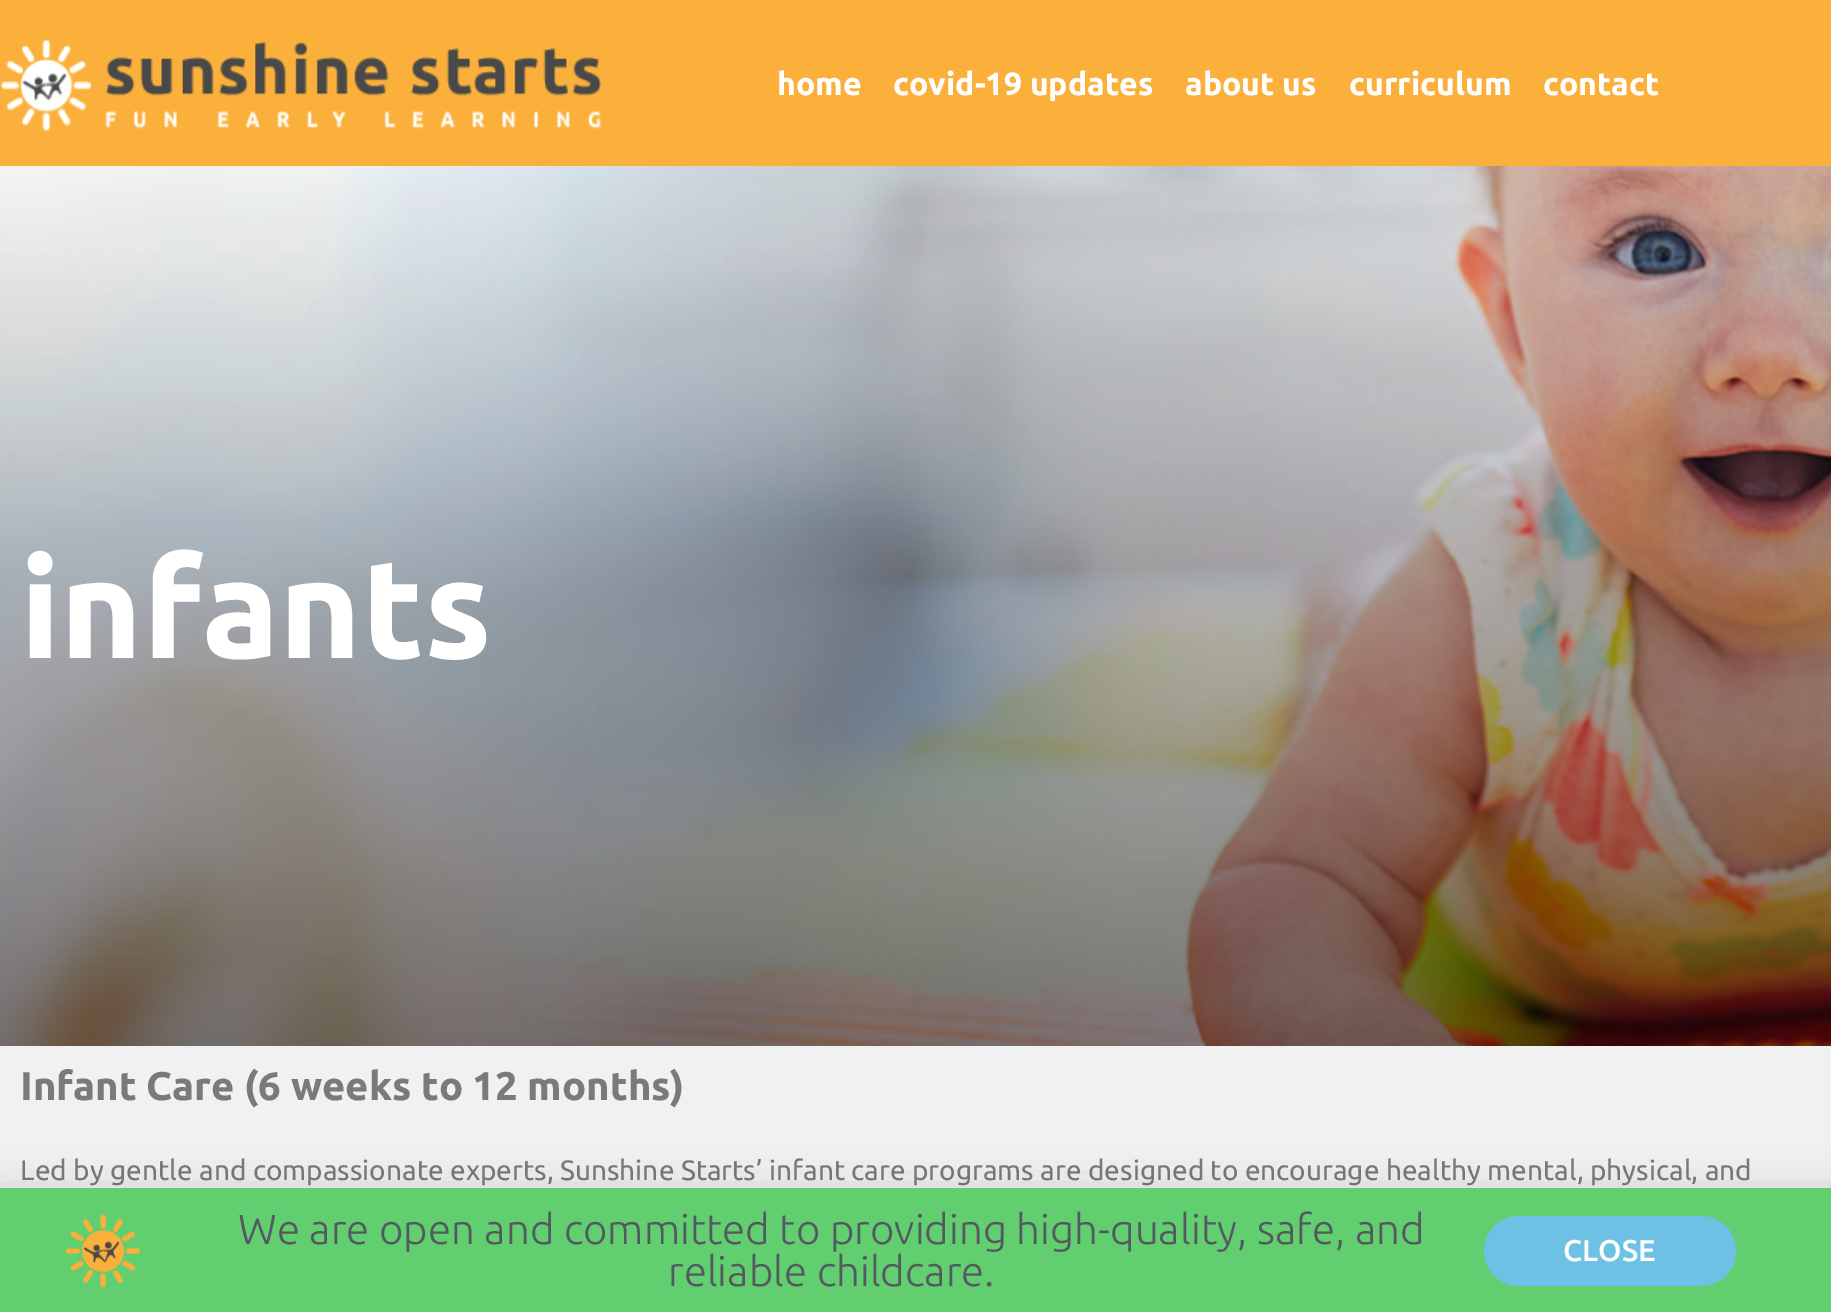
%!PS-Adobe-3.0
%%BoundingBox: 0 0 1831 1312
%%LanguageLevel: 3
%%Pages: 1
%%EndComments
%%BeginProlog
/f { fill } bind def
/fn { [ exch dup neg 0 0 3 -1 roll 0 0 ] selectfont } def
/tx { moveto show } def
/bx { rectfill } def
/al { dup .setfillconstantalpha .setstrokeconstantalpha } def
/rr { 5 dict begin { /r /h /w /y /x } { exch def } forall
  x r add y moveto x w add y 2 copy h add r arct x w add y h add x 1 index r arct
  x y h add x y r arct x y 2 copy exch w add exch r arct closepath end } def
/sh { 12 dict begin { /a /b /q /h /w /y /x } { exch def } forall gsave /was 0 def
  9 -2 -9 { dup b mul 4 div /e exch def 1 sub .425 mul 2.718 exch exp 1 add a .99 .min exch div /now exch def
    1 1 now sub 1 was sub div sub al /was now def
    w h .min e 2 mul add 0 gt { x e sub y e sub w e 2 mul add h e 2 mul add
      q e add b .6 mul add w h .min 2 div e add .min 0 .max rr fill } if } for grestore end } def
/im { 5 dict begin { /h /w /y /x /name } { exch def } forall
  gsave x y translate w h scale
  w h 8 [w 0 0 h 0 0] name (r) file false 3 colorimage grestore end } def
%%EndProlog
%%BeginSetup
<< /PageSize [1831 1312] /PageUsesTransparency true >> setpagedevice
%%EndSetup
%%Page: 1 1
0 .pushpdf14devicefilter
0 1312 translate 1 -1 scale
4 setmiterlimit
1 setgray
0 0 1831 1312 bx
0.984 0.69 0.231 setrgbcolor
0 0 1831 166 bx
(image0.raw) 1 39 601 94 im
/Ubuntu-Bold 32 fn
1 setgray
(home) 777 95 tx
(covid-19 updates) 893 95 tx
(about us) 1185 95 tx
(curriculum) 1349 95 tx
(contact) 1543 95 tx
(image1.raw) 0 166 1831 880 im
/Ubuntu-Bold 140 fn
(infants) 20 658 tx
0.945 setgray
0 1046 1831 142 bx
/Ubuntu-Bold 40 fn
0.478 setgray
(Infant Care \(6 weeks to 12 months\)) 20 1100 tx
/Ubuntu-Regular 28 fn
(Led by gentle and compassionate experts, Sunshine Starts’ infant care programs are designed to encourage healthy mental, physical, and) 20 1180 tx
0 setgray
-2 1198 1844 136 0 23 0.2 sh
0.38 0.808 0.439 setrgbcolor
0 1188 1831 124 bx
(image2.raw) 65 1214 75 75 im
/Ubuntu-Light 42 fn
0.329 0.349 0.373 setrgbcolor
(We are open and committed to providing high-quality, safe, and) 238 1244 tx
(reliable childcare.) 668 1286 tx
0.431 0.757 0.894 setrgbcolor
1484 1216 252 70 35 rr f
/Ubuntu-Medium 30 fn
1 setgray
(CLOSE) 1563 1261 tx
.poppdf14devicefilter showpage
%%EOF
